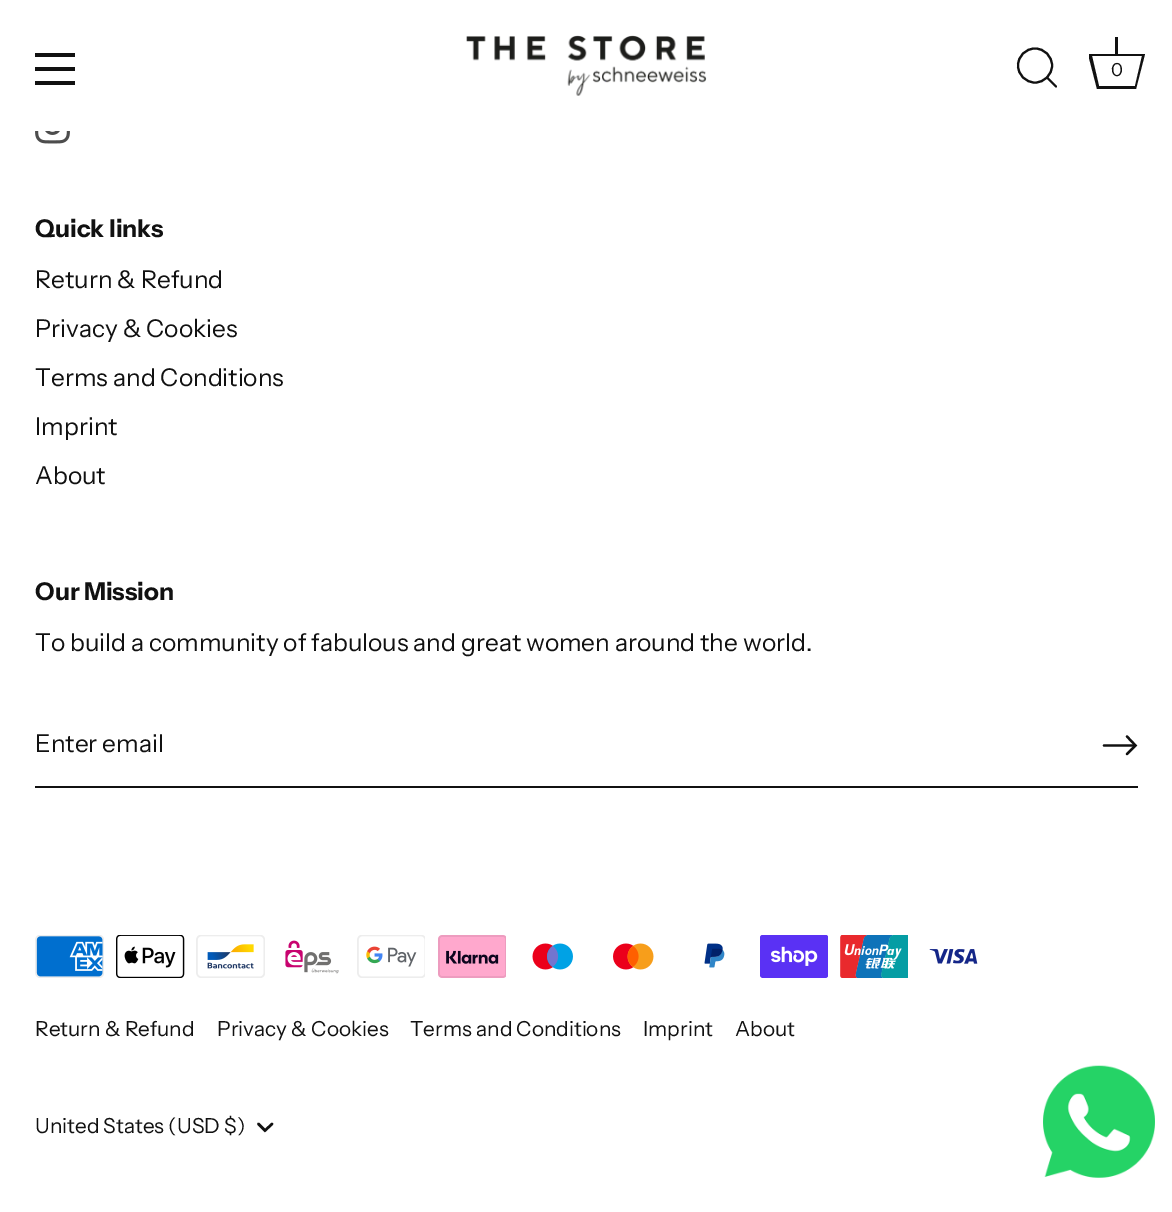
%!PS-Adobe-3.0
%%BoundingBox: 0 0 1172 1212
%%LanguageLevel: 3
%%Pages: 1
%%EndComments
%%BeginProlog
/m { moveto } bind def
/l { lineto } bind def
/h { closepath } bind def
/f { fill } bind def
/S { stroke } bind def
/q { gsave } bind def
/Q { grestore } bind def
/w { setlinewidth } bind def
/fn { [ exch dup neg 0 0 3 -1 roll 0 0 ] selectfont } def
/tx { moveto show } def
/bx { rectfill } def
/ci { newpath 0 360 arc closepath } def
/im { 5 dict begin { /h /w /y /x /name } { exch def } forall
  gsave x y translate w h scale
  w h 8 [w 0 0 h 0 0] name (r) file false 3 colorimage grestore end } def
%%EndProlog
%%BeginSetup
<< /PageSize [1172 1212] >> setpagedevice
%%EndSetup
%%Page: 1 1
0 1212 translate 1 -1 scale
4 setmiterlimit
1 setgray
0 0 1172 1212 bx
0.067 setgray
35 53 40 4 bx
35 67 40 4 bx
35 81 40 4 bx
(image0.raw) 466 35 241 61 im
2.1 w
1035 65.5 17 ci S
1 setlinecap
1 setlinejoin
1056 86.5 m 1047 77.5 l S
1115 37 3 17 bx
q
1089 35 56 56 rectclip
1142 56 m 1135 86 l 1099 86 l 1092 56 l 1142 56 l 1145 54 m 1088 54 l 1097 89 l 1136 89 l h f
Q
/InstrumentSans-Regular 18 fn
(0) 1111 76 tx
(image1.raw) 35 131 35 13 im
/InstrumentSans-Bold 24.5 fn
(Quick links) 35 237 tx
/InstrumentSans-Regular 24.5 fn
(Return & Refund) 35 288 tx
(Privacy & Cookies) 35 337 tx
(Terms and Conditions) 35 386 tx
(Imprint) 35 435 tx
(About) 35 484 tx
/InstrumentSans-Bold 24.5 fn
(Our Mission) 35 600 tx
/InstrumentSans-Regular 24.5 fn
(To build a community of fabulous and great women around the world.) 35 651 tx
35 786 1103 2 bx
(Enter email) 35 752 tx
2.3 w
0 setlinejoin
1127 754 m 1135.5 745.5 l 1127 736.5 l S
1 setlinejoin
1134.5 745.5 m 1104 745.5 l S
(image2.raw) 35 935 69 43 im
(image3.raw) 116 935 69 43 im
(image4.raw) 196 935 69 43 im
(image5.raw) 285 940 54 34 im
(image6.raw) 357 935 68 43 im
(image7.raw) 438 935 68 43 im
(image8.raw) 532 943 41 27 im
(image9.raw) 613 943 41 27 im
(image10.raw) 704 943 21 25 im
(image11.raw) 760 935 68 43 im
(image12.raw) 840 935 68 43 im
(image13.raw) 929 949 49 15 im
/InstrumentSans-Regular 20.75 fn
(Return & Refund) 35 1036 tx
(Privacy & Cookies) 217 1036 tx
(Terms and Conditions) 410 1036 tx
(Imprint) 643 1036 tx
(About) 735 1036 tx
(United States \(USD $\)) 35 1133 tx
2.5 w
0 setlinejoin
258.5 1124 m 265 1130.5 l 272 1124 l S
(image14.raw) 1043 1065 112 113 im
showpage
%%EOF
